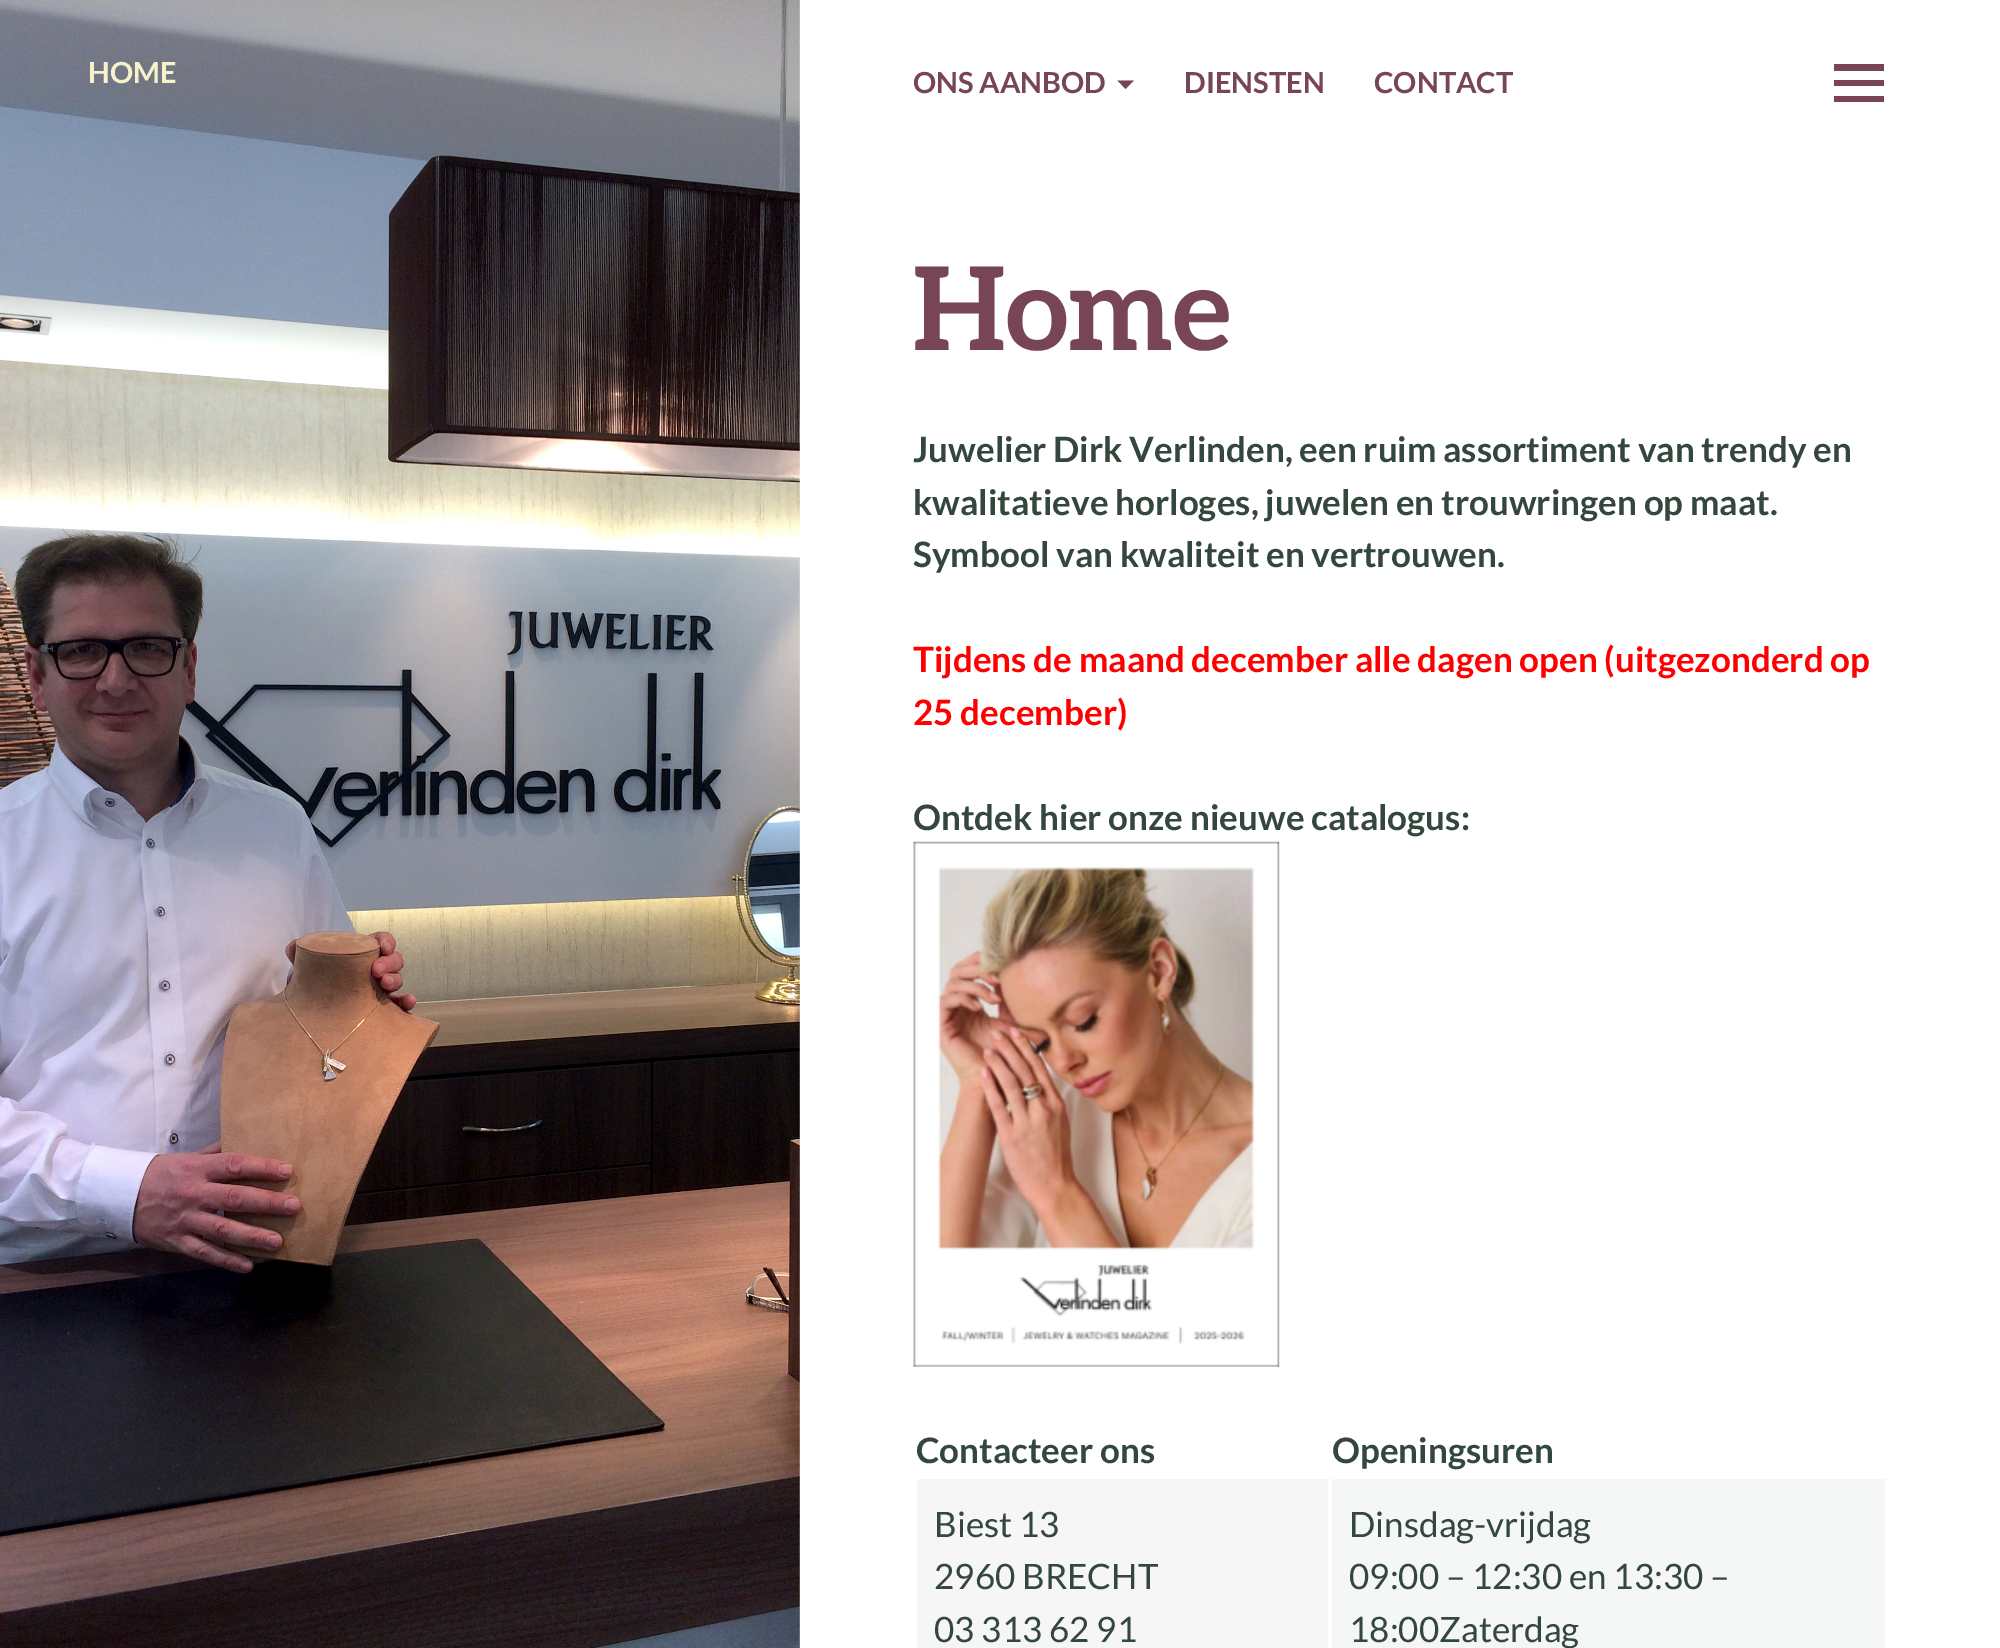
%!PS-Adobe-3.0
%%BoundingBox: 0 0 2000 1648
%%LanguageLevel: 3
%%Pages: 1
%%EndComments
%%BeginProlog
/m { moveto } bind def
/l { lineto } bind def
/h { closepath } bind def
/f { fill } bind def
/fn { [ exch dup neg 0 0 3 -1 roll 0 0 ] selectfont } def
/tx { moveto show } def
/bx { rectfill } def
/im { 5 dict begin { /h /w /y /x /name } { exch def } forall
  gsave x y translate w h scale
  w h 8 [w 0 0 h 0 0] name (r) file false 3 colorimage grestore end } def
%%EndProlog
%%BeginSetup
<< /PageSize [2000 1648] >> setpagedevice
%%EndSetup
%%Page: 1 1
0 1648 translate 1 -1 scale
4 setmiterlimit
1 setgray
0 0 2000 1648 bx
(image0.raw) 0 0 800 1648 im
/Lato-Bold 29 fn
0.969 0.949 0.796 setrgbcolor
(HOME) 88 83 tx
0.467 0.271 0.325 setrgbcolor
(ONS AANBOD) 913 93 tx
1117.5 80.5 m 1125.5 89 l 1134 80.5 l h f
(DIENSTEN) 1184 93 tx
(CONTACT) 1374 93 tx
1884 64 m 1884 71 l 1834 71 l 1834 64 l h 1834 80 m 1884 80 l 1884 86 l 1834 86 l h 1834 96 m 1884 96 l 1884 102 l 1834 102 l h f
/Aleo-Bold 115.5 fn
(Home) 913 350 tx
/Lato-Bold 35 fn
0.2 0.278 0.239 setrgbcolor
(Juwelier Dirk Verlinden, een ruim assortiment van trendy en) 913 462 tx
(kwalitatieve horloges, juwelen en trouwringen op maat.) 913 515 tx
(Symbool van kwaliteit en vertrouwen.) 913 567 tx
1 0 0 setrgbcolor
(Tijdens de maand december alle dagen open \(uitgezonderd op) 913 672 tx
(25 december\)) 913 725 tx
0.2 0.278 0.239 setrgbcolor
(Ontdek hier onze nieuwe catalogus:) 913 830 tx
(image1.raw) 913 841 367 526 im
(Contacteer ons) 916 1463 tx
(Openingsuren) 1332 1463 tx
0.961 0.965 0.961 setrgbcolor
917 1479 411 169 bx
/Lato-Regular 35 fn
0.2 0.278 0.239 setrgbcolor
(Biest 13) 934 1537 tx
(2960 BRECHT) 934 1589 tx
(03 313 62 91) 934 1642 tx
0.961 0.965 0.965 setrgbcolor
1332 1479 553 169 bx
0.2 0.278 0.239 setrgbcolor
(Dinsdag-vrijdag) 1349 1537 tx
(09:00 – 12:30 en 13:30 –) 1349 1589 tx
(18:00Zaterdag) 1349 1642 tx
showpage
%%EOF
